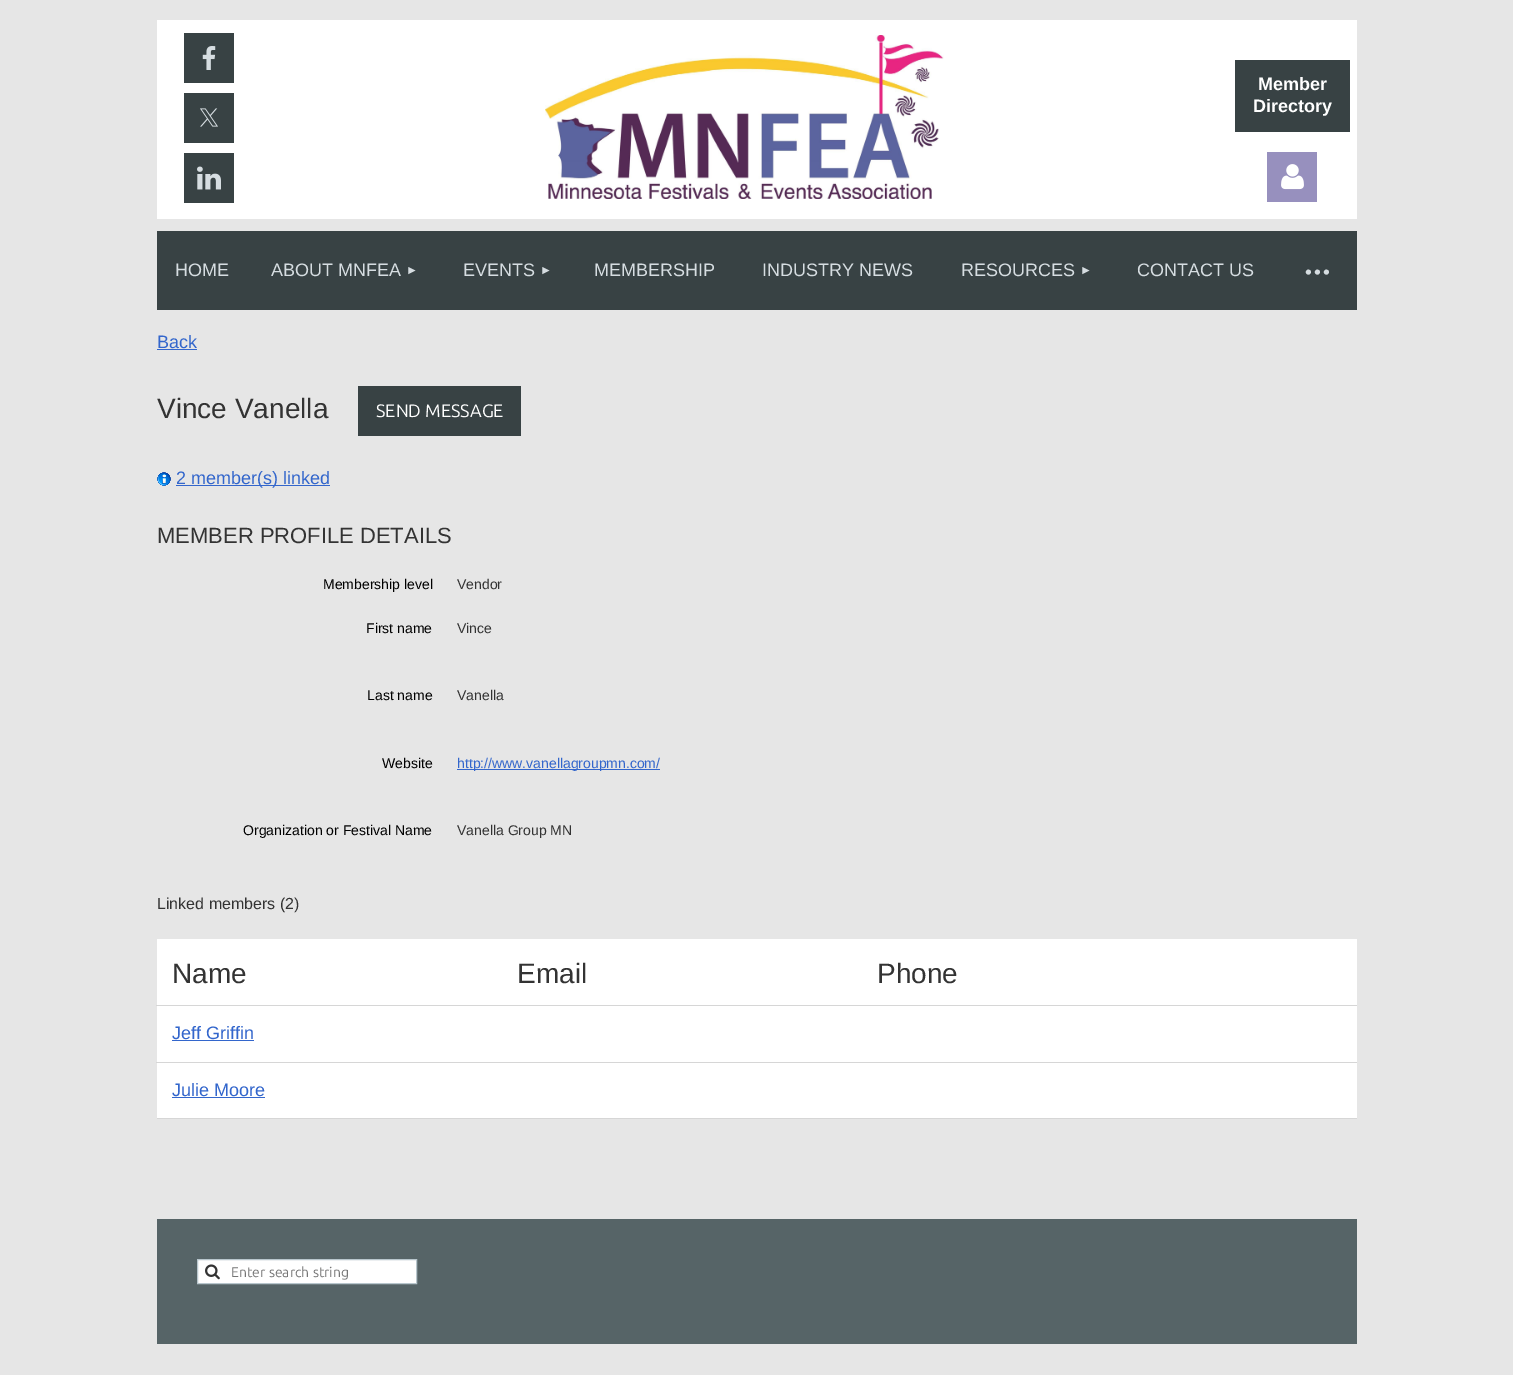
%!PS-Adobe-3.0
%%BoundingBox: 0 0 1513 1375
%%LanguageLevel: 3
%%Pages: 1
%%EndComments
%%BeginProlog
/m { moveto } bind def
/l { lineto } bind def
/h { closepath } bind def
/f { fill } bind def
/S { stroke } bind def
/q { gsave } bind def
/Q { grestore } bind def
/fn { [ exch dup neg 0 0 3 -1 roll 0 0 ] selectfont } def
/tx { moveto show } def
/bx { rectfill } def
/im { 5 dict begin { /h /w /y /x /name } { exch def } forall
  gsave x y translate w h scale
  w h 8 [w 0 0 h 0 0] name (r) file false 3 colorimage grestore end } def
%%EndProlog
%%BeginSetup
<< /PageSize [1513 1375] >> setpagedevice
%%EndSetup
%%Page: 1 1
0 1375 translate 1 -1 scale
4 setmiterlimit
0.902 setgray
0 0 1513 1375 bx
1 setgray
157 20 1200 199 bx
0.22 0.259 0.267 setrgbcolor
184 33 50 50 bx
(image0.raw) 202 46 14 24 im
184 93 50 50 bx
(image1.raw) 200 108 18 19 im
184 153 50 50 bx
(image2.raw) 197 166 24 24 im
(image3.raw) 545 35 399 164 im
1235 60 115 72 bx
/LiberationSans-Bold 18 fn
1 setgray
(Member) 1258 90 tx
(Directory) 1253 112 tx
0.592 0.565 0.745 setrgbcolor
1267 152 50 50 bx
(image4.raw) 1281 164 23 26 im
0.22 0.259 0.267 setrgbcolor
157 231 1200 79 bx
/LiberationSans-Regular 18 fn
0.839 0.867 0.882 setrgbcolor
(HOME) 175 276 tx
(ABOUT MNFEA) 271 276 tx
/LiberationSans-Regular 12 fn
(►) 406 274 tx
/LiberationSans-Regular 18 fn
(EVENTS) 463 276 tx
/LiberationSans-Regular 12 fn
(►) 540 274 tx
/LiberationSans-Regular 18 fn
(MEMBERSHIP) 594 276 tx
(INDUSTRY NEWS) 762 276 tx
(RESOURCES) 961 276 tx
/LiberationSans-Regular 12 fn
(►) 1080 274 tx
/LiberationSans-Regular 18 fn
(CONTACT US) 1137 276 tx
/Ubuntu-Regular 44 fn
1303 285 m -2 0 (···) ashow
/LiberationSans-Regular 18 fn
0.2 0.4 0.8 setrgbcolor
(Back) 157 348 tx
157 349 40 1 bx
/LiberationSans-Regular 28 fn
0.2 setgray
(Vince Vanella) 157 418 tx
0.22 0.259 0.267 setrgbcolor
358 386 163 50 bx
/Ubuntu-Regular 18 fn
1 setgray
(SEND MESSAGE) 376 417 tx
(image5.raw) 157 472 14 14 im
0.2 0.4 0.8 setrgbcolor
176 485 154 1 bx
/LiberationSans-Regular 18 fn
(2 member\(s\) linked) 176 484 tx
/LiberationSans-Regular 22 fn
0.2 setgray
(MEMBER PROFILE DETAILS) 157 543 tx
/LiberationSans-Regular 14 fn
0 setgray
(Membership level) 323 589 tx
0.2 setgray
(Vendor) 457 589 tx
0 setgray
(First name) 366 633 tx
0.2 setgray
(Vince) 457 633 tx
0 setgray
(Last name) 367 700 tx
0.2 setgray
(Vanella) 457 700 tx
0 setgray
(Website) 382 768 tx
0.2 0.4 0.8 setrgbcolor
457 769 203 1 bx
(http://www.vanellagroupmn.com/) 457 768 tx
0 setgray
(Organization or Festival Name) 243 835 tx
0.2 setgray
(Vanella Group MN) 457 835 tx
/LiberationSans-Regular 16 fn
(Linked members \(2\)) 157 909 tx
1 setgray
157 939 1200 179 bx
0.839 setgray
157 1118 1200 1 bx
/LiberationSans-Regular 28 fn
0.2 setgray
(Name) 172 983 tx
(Email) 517 983 tx
(Phone) 877 983 tx
0.839 setgray
156 1005 1201 1 bx
/LiberationSans-Regular 18 fn
0.2 0.4 0.8 setrgbcolor
(Jeff Griffin) 172 1039 tx
172 1040 82 1 bx
0.839 setgray
156 1062 1201 1 bx
0.2 0.4 0.8 setrgbcolor
(Julie Moore) 172 1096 tx
172 1097 93 1 bx
0.337 0.392 0.404 setrgbcolor
157 1219 1200 125 bx
1 setgray
197.5 1259.5 m 416.5 1259.5 l 416.5 1283.5 l 197.5 1283.5 l h q f Q
0.722 0.776 0.804 setrgbcolor
S
(image6.raw) 205 1264 15 16 im
/Ubuntu-Regular 14 fn
0.459 setgray
(Enter search string) 231 1277 tx
showpage
%%EOF
